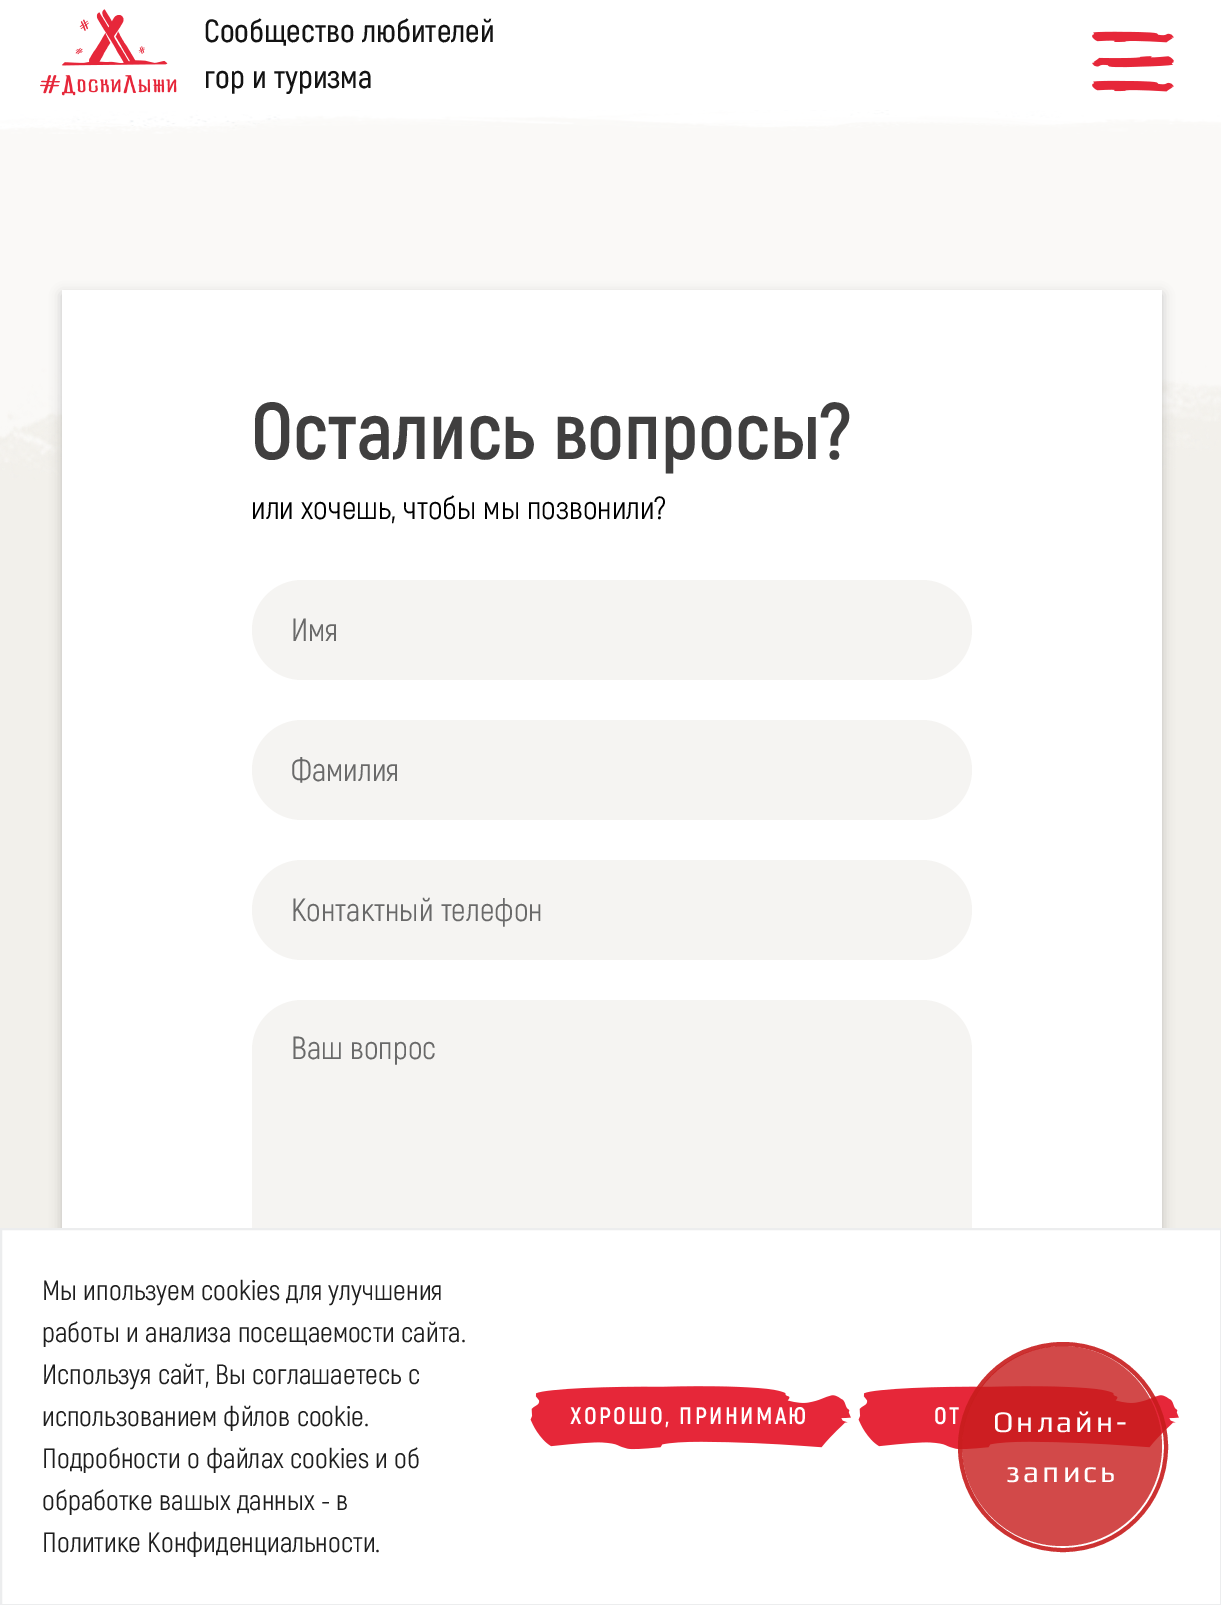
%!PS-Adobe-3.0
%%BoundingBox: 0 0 1221 1605
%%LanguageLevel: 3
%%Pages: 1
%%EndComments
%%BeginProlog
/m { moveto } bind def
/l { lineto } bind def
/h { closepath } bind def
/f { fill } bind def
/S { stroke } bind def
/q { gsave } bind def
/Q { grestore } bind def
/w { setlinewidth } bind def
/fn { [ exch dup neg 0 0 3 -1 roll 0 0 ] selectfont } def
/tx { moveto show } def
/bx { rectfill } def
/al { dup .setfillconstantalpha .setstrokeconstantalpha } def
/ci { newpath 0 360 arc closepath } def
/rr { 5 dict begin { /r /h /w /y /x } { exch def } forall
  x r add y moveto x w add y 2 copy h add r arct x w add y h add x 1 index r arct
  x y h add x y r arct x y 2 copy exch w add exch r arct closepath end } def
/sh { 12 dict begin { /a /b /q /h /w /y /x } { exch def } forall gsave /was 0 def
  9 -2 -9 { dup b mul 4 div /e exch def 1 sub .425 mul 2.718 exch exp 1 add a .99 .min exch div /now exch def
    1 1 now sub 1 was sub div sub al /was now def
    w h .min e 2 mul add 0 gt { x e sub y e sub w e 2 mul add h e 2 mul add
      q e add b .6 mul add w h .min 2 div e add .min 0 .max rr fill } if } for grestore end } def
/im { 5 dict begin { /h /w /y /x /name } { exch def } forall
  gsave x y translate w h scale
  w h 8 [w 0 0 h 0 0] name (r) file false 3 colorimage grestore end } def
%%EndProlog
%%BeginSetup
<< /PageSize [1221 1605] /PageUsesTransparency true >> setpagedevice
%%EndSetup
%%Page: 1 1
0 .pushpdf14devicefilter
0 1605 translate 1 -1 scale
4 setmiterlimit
0.98 0.976 0.969 setrgbcolor
0 0 1221 1605 bx
1 setgray
0 0 1221 110 bx
(image0.raw) 40 9 137 87 im
/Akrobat-SemiBold 32 fn
0.075 setgray
(Cообщество любителей) 204 42 tx
(гор и туризма) 204 88 tx
(image1.raw) 1092 31 82 61 im
(image2.raw) 0 110 1221 24 im
(image3.raw) 0 364 1221 126 im
0.949 0.941 0.922 setrgbcolor
0 490 1221 738 bx
0 setgray
62 294 1100 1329 0 6 0.2 sh
1 setgray
62 290 1100 938 bx
/Akrobat-Bold 80 fn
0.251 0.247 0.247 setrgbcolor
(Остались вопросы?) 251 459 tx
/Akrobat-Regular 32 fn
0 setgray
(или хочешь, чтобы мы позвонили?) 251 519 tx
0.961 0.957 0.949 setrgbcolor
252 580 720 100 50 rr f
0.412 setgray
(Имя) 291 641 tx
0.961 0.957 0.949 setrgbcolor
252 720 720 100 50 rr f
0.412 setgray
(Фамилия) 291 781 tx
0.961 0.957 0.949 setrgbcolor
252 860 720 100 50 rr f
0.412 setgray
(Контактный телефон) 291 921 tx
0.961 0.957 0.949 setrgbcolor
252 1000 720 300 50 rr f
0.412 setgray
(Ваш вопрос) 291 1059 tx
1 setgray
1 1229 m 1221 1229 l 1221 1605 l 1 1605 l h q f Q
0.925 0.929 0.933 setrgbcolor
2 w
S
/Akrobat-Regular 28 fn
0.118 setgray
(Мы ипользуем cookies для улучшения) 42 1300 tx
(работы и анализа посещаемости сайта.) 42 1342 tx
(Используя сайт, Вы соглашаетесь с) 42 1384 tx
(использованием фйлов cookie.) 42 1426 tx
(Подробности о файлах cookies и об) 42 1468 tx
(обработке вашых данных - в) 42 1510 tx
(Политике Конфиденциальности.) 42 1552 tx
(image4.raw) 530 1386 321 64 im
/Akrobat-Bold 24 fn
1 setgray
570 1424 m 2.4 0 (ХОРОШО, ПРИНИМАЮ) ashow
(image4.raw) 858 1386 321 64 im
934 1424 m 2.4 0 (ОТ) ashow
0.8 al
0.78 0.11 0.11 setrgbcolor
1062 1446 100 ci f
0.9 al
4 w
1063 1447 103 ci S
/Play-Regular 30 fn
1 al
1 setgray
993 1432 m 3 0 (Онлайн-) ashow
1006 1482 m 3 0 (запись) ashow
.poppdf14devicefilter showpage
%%EOF
